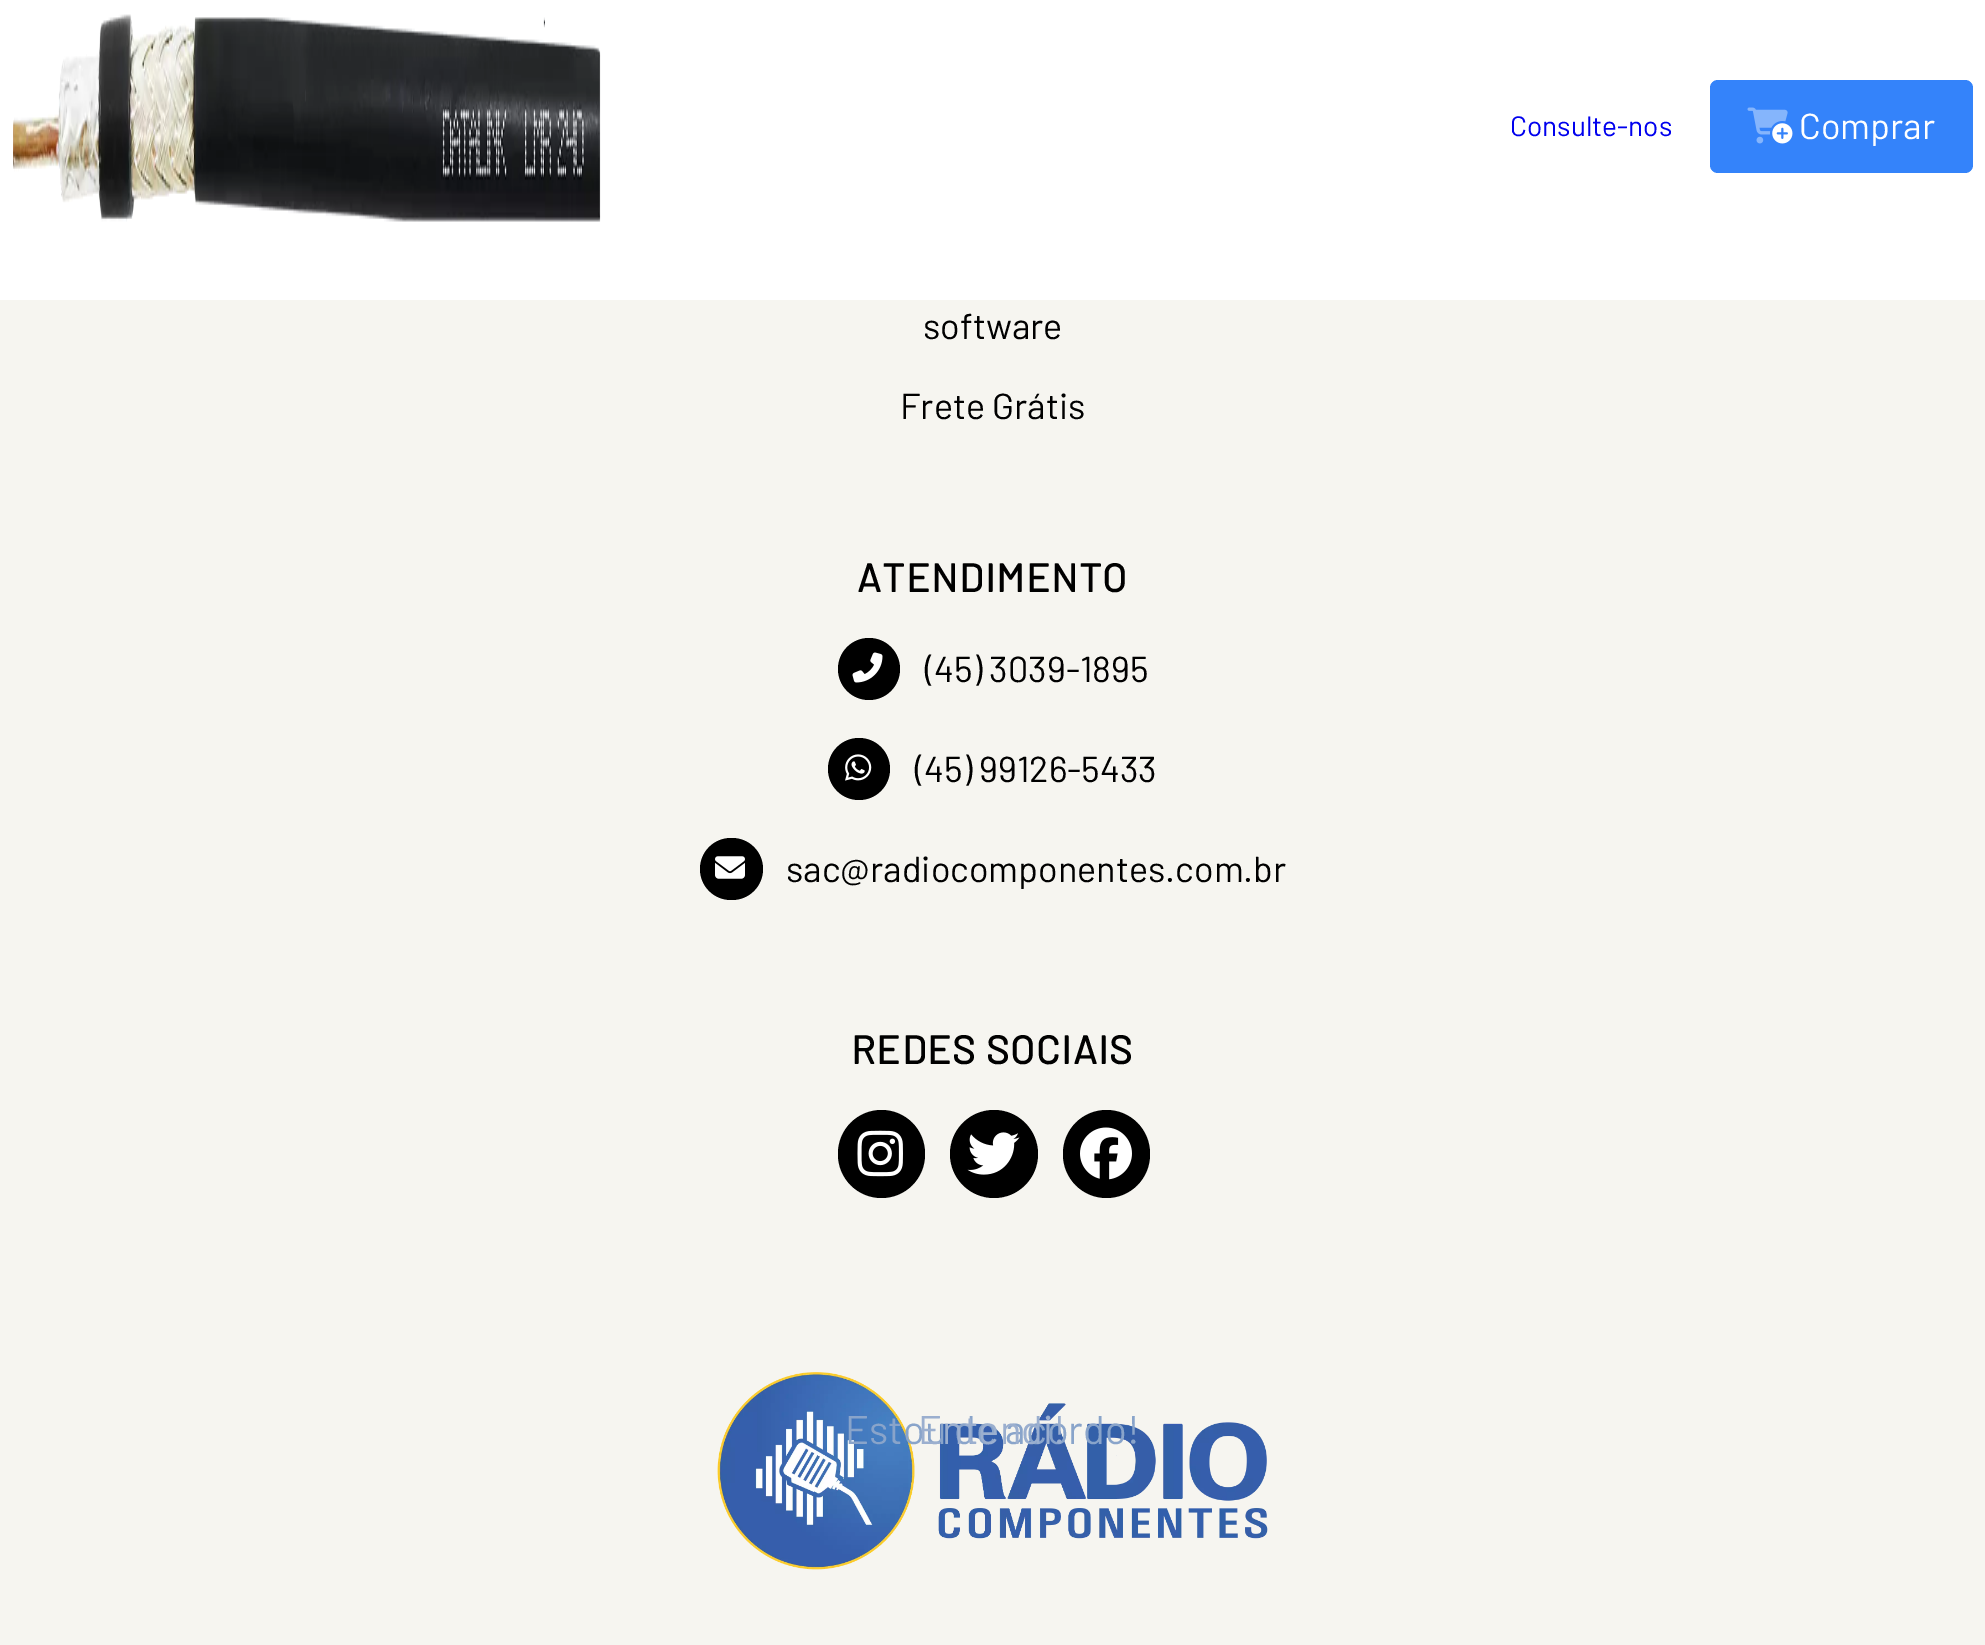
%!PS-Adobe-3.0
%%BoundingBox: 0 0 1985 1645
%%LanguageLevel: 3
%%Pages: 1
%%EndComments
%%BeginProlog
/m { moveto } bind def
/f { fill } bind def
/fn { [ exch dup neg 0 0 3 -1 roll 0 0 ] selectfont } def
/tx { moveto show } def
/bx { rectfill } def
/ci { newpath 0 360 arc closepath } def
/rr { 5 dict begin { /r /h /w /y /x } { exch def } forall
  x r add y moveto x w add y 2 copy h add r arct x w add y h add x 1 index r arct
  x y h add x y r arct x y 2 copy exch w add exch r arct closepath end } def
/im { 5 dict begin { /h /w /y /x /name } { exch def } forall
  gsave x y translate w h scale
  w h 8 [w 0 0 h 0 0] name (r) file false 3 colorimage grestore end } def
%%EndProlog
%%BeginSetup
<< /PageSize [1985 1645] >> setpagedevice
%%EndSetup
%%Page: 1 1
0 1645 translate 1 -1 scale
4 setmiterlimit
0.965 0.961 0.941 setrgbcolor
0 0 1985 1645 bx
1 setgray
0 0 1985 300 bx
(image0.raw) 13 14 588 208 im
/Barlow-Regular 28 fn
0 0 0.933 setrgbcolor
(Consulte-nos) 1510 136 tx
0.204 0.514 0.98 setrgbcolor
1710 80 263 93 8 rr f
(image1.raw) 1747 107 46 37 im
/Barlow-Regular 36 fn
1 setgray
(Comprar) 1799 139 tx
0 setgray
(software) 923 339 tx
(Frete Grátis) 900 419 tx
/Barlow-Bold 39.5 fn
857 592 m 1.25 0 (ATENDIMENTO) ashow
869 669 31 ci f
(image2.raw) 852 652 31 31 im
/Barlow-Regular 36 fn
(\(45\) 3039-1895) 925 682 tx
859 769 31 ci f
(image3.raw) 845 754 27 27 im
(\(45\) 99126-5433) 915 782 tx
700 838 63 62 31 rr f
(image4.raw) 715 856 30 23 im
(sac@radiocomponentes.com.br) 786 882 tx
/Barlow-Bold 39.5 fn
851 1064 m 1.25 0 (REDES SOCIAIS) ashow
838 1110 87 88 43.5 rr f
(image5.raw) 857 1130 46 47 im
994 1154 44 ci f
(image6.raw) 967 1132 53 43 im
1063 1110 87 88 43.5 rr f
(image7.raw) 1080 1127 52 53 im
(image8.raw) 717 1372 551 198 im
/Barlow-Regular 40 fn
0.537 0.643 0.792 setrgbcolor
(Estou de acordo!) 845 1444 tx
0.608 0.686 0.812 setrgbcolor
(Entendi!) 918 1444 tx
showpage
%%EOF
